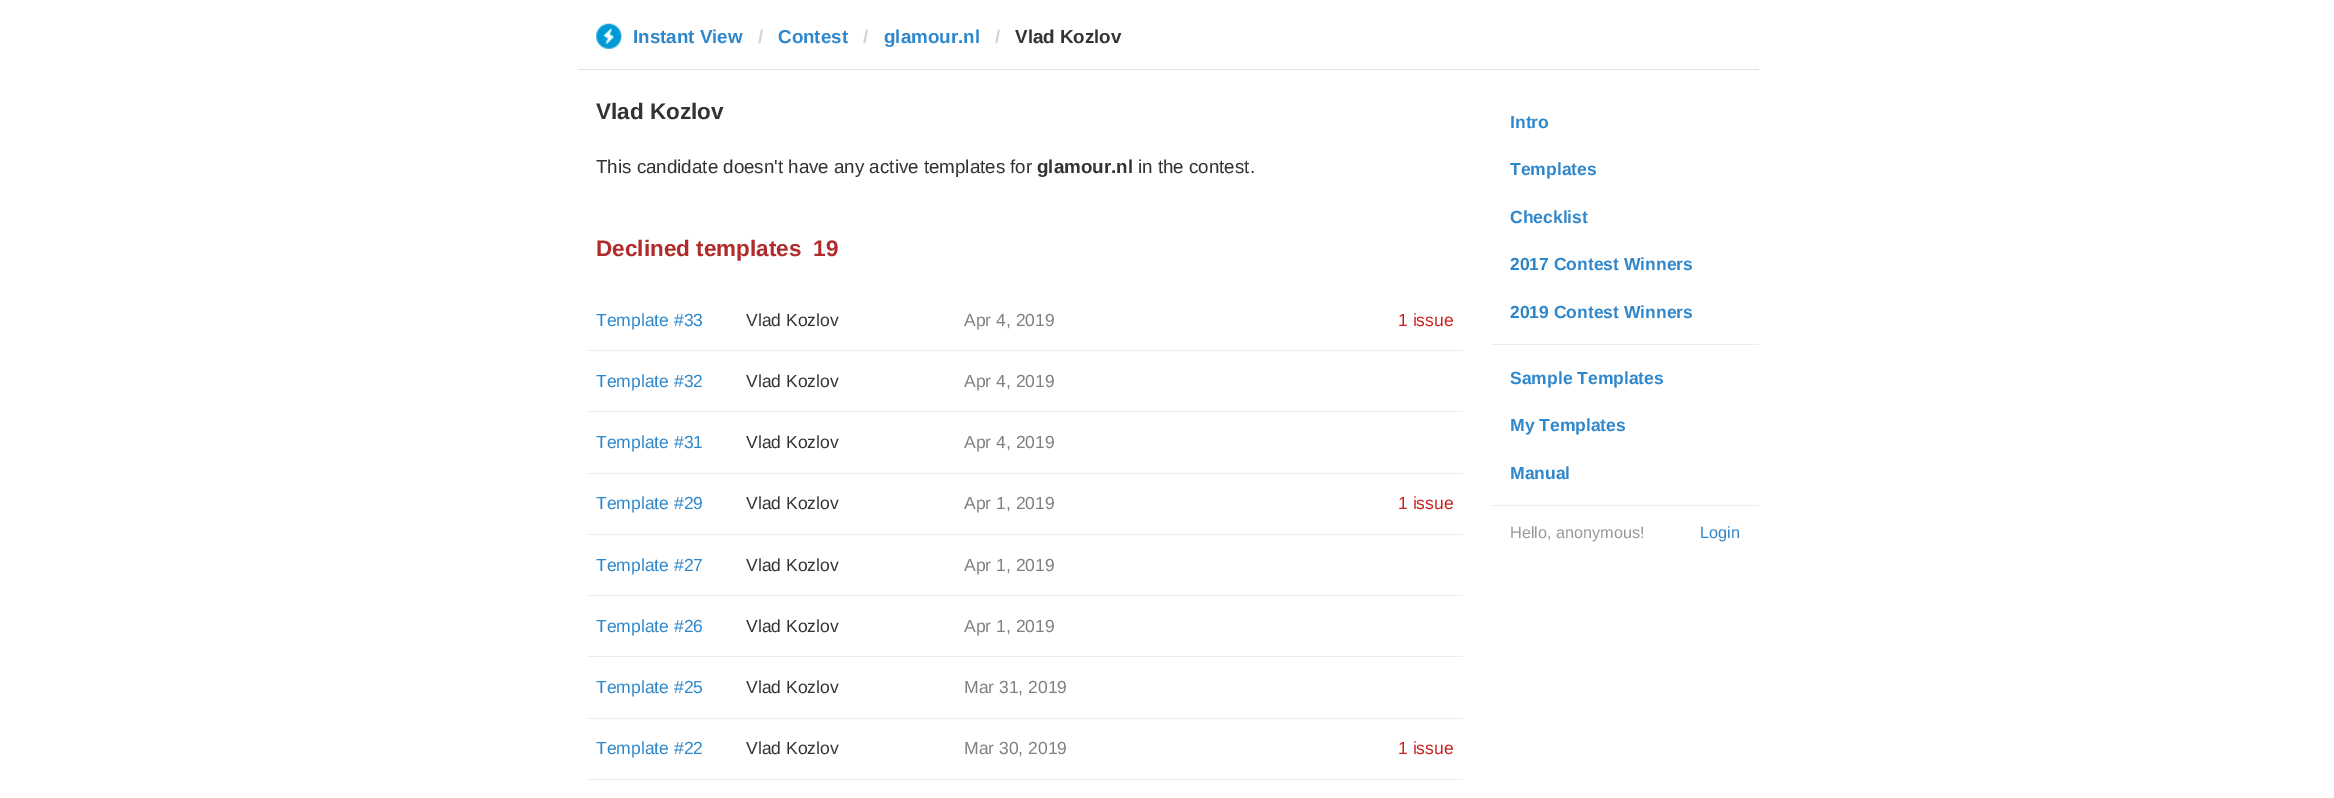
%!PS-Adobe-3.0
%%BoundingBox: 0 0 2334 798
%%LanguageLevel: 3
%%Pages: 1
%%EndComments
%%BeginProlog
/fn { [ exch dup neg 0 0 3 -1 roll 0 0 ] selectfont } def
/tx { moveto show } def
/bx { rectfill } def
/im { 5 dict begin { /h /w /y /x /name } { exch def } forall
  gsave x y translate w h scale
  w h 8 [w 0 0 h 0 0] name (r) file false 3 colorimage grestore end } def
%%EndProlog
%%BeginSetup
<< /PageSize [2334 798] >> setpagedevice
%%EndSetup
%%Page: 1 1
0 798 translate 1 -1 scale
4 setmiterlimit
1 setgray
0 0 2334 798 bx
0.878 setgray
578 69 1181 1 bx
(image0.raw) 596 23 26 26 im
/LiberationSans-Bold 18.75 fn
0.18 0.529 0.792 setrgbcolor
(Instant View) 633 43 tx
0.831 setgray
(/) 758 43 tx
0.18 0.529 0.792 setrgbcolor
(Contest) 778 43 tx
0.831 setgray
(/) 863 43 tx
0.18 0.529 0.792 setrgbcolor
(glamour.nl) 884 43 tx
0.831 setgray
(/) 995 43 tx
0.2 setgray
(Vlad Kozlov) 1015 43 tx
/LiberationSans-Bold 22.5 fn
(Vlad Kozlov) 596 119 tx
/LiberationSans-Regular 18.75 fn
(This candidate doesn't have any active templates for) 596 173 tx
/LiberationSans-Bold 18.75 fn
(glamour.nl) 1037 173 tx
/LiberationSans-Regular 18.75 fn
(in the contest.) 1138 173 tx
/LiberationSans-Bold 22.5 fn
0.694 0.169 0.169 setrgbcolor
(Declined templates) 596 256 tx
(19) 813 256 tx
0.929 setgray
588 350 875 1 bx
/LiberationSans-Regular 17.5 fn
0.18 0.529 0.792 setrgbcolor
(Template #33) 596 326 tx
0.2 setgray
(Vlad Kozlov) 746 326 tx
0.502 setgray
(Apr 4, 2019) 964 326 tx
0.796 0.125 0.125 setrgbcolor
(1 issue) 1398 326 tx
0.929 setgray
588 411 875 1 bx
0.18 0.529 0.792 setrgbcolor
(Template #32) 596 387 tx
0.2 setgray
(Vlad Kozlov) 746 387 tx
0.502 setgray
(Apr 4, 2019) 964 387 tx
0.929 setgray
588 473 875 1 bx
0.18 0.529 0.792 setrgbcolor
(Template #31) 596 448 tx
0.2 setgray
(Vlad Kozlov) 746 448 tx
0.502 setgray
(Apr 4, 2019) 964 448 tx
0.929 setgray
588 534 875 1 bx
0.18 0.529 0.792 setrgbcolor
(Template #29) 596 509 tx
0.2 setgray
(Vlad Kozlov) 746 509 tx
0.502 setgray
(Apr 1, 2019) 964 509 tx
0.796 0.125 0.125 setrgbcolor
(1 issue) 1398 509 tx
0.929 setgray
588 595 875 1 bx
0.18 0.529 0.792 setrgbcolor
(Template #27) 596 571 tx
0.2 setgray
(Vlad Kozlov) 746 571 tx
0.502 setgray
(Apr 1, 2019) 964 571 tx
0.929 setgray
588 656 875 1 bx
0.18 0.529 0.792 setrgbcolor
(Template #26) 596 632 tx
0.2 setgray
(Vlad Kozlov) 746 632 tx
0.502 setgray
(Apr 1, 2019) 964 632 tx
0.929 setgray
588 718 875 1 bx
0.18 0.529 0.792 setrgbcolor
(Template #25) 596 693 tx
0.2 setgray
(Vlad Kozlov) 746 693 tx
0.502 setgray
(Mar 31, 2019) 964 693 tx
0.929 setgray
588 779 875 1 bx
0.18 0.529 0.792 setrgbcolor
(Template #22) 596 754 tx
0.2 setgray
(Vlad Kozlov) 746 754 tx
0.502 setgray
(Mar 30, 2019) 964 754 tx
0.796 0.125 0.125 setrgbcolor
(1 issue) 1398 754 tx
/LiberationSans-Bold 17.5 fn
0.18 0.529 0.792 setrgbcolor
(Intro) 1510 128 tx
(Templates) 1510 175 tx
(Checklist) 1510 223 tx
(2017 Contest Winners) 1510 270 tx
(2019 Contest Winners) 1510 318 tx
0.929 setgray
1491 344 268 1 bx
0.18 0.529 0.792 setrgbcolor
(Sample Templates) 1510 384 tx
(My Templates) 1510 431 tx
(Manual) 1510 479 tx
0.929 setgray
1491 505 268 1 bx
/LiberationSans-Regular 16.25 fn
0.6 setgray
(Hello, anonymous!) 1510 538 tx
0.18 0.529 0.792 setrgbcolor
(Login) 1700 538 tx
showpage
%%EOF
